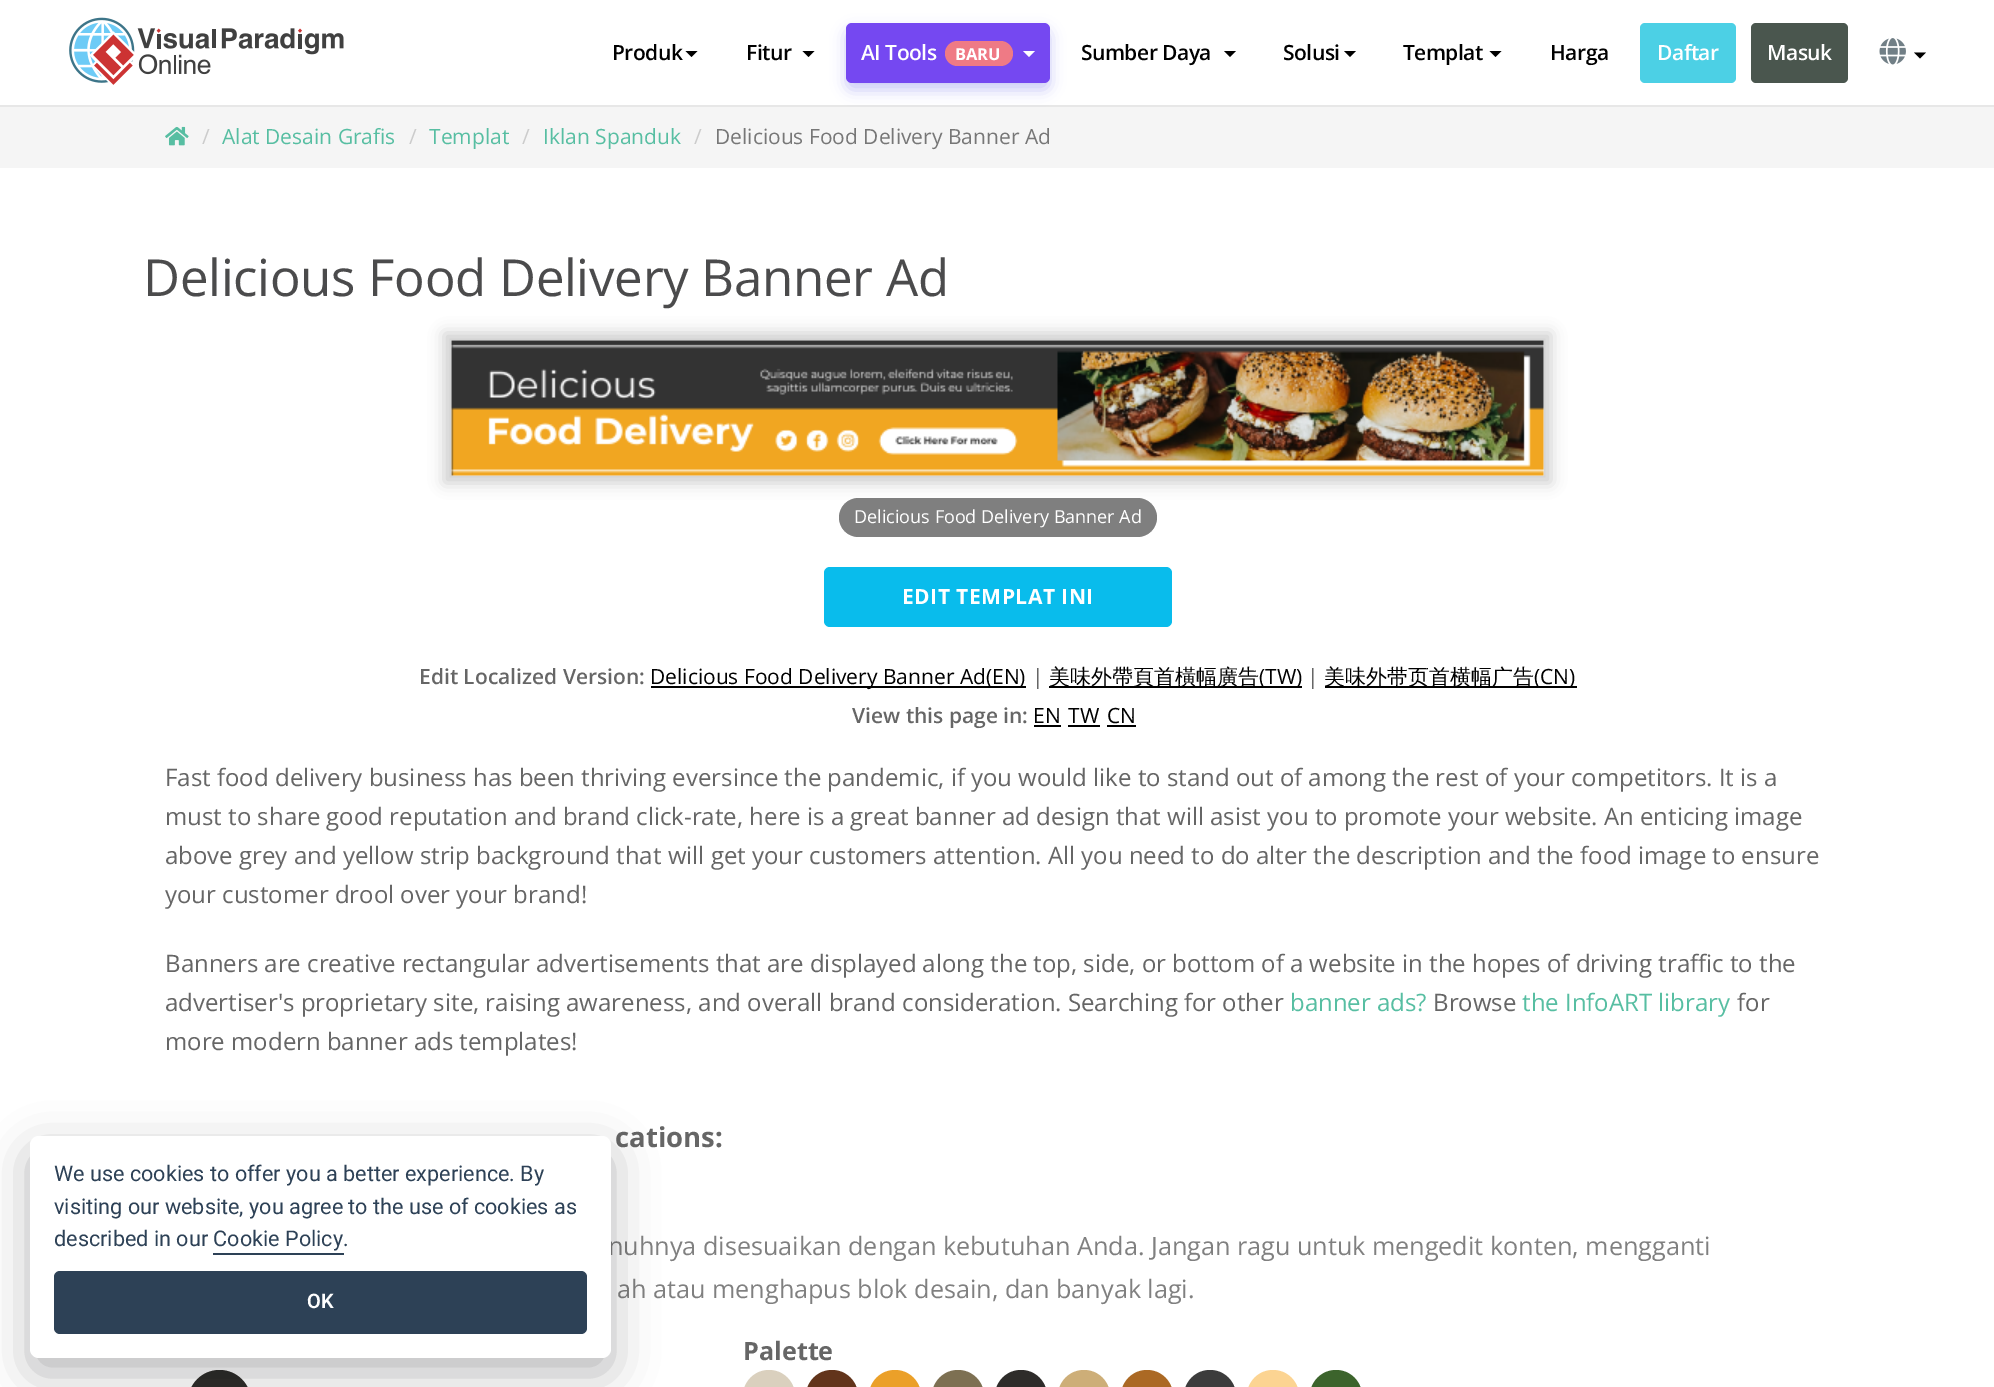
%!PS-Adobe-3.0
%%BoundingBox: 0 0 1994 1387
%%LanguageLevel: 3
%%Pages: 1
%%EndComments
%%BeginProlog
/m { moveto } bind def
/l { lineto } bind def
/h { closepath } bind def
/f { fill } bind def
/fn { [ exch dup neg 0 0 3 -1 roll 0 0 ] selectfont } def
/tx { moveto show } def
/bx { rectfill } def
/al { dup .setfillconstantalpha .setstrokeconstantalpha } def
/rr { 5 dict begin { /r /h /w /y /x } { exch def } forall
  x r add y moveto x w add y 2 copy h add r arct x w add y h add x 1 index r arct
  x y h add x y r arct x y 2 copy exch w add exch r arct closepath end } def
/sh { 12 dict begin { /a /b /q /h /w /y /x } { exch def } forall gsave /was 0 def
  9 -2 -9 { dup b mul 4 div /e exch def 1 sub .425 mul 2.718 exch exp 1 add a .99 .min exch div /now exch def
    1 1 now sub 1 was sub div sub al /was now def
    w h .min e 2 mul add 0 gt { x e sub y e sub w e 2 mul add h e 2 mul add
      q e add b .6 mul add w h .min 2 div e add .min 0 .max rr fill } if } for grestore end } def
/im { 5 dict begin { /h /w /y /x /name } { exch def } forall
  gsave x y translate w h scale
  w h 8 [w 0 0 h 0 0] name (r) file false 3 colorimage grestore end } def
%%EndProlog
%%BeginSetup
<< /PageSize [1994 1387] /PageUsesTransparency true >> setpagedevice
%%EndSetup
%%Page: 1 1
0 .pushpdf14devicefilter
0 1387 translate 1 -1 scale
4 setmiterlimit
1 setgray
0 0 1994 1387 bx
0.906 setgray
0 105 1994 2 bx
(image0.raw) 69 17 275 68 im
/OpenSans-SemiBold 21 fn
0 setgray
612 60 m -0.5 0 (Produk) ashow
685.5 51 m 697.5 51 l 691.5 57 l h f
746 60 m -0.5 0 (Fitur) ashow
802.5 51 m 814.5 51 l 808.5 57 l h f
0.961 setgray
0 107 1994 61 bx
0.298 0.306 0.898 setrgbcolor
846 30 204 60 6 7.5 0.3 sh
0.459 0.282 0.945 setrgbcolor
846 23 204 60 6 rr f
1 setgray
861 60 m -0.5 0 (AI Tools) ashow
0.937 0.478 0.522 setrgbcolor
945 41 68 25 12.5 rr f
/OpenSans-Bold 16.5 fn
1 setgray
(BARU) 955 60 tx
1023 51 m 1035 51 l 1029 57 l h f
/OpenSans-SemiBold 21 fn
0 setgray
1081 60 m -0.5 0 (Sumber Daya) ashow
1224 51 m 1236 51 l 1230 57 l h f
1283 60 m -0.5 0 (Solusi) ashow
1344 51 m 1356 51 l 1350 57 l h f
1403 60 m -0.5 0 (Templat) ashow
1489.5 51 m 1501.5 51 l 1495.5 57 l h f
1550 60 m -0.5 0 (Harga) ashow
0.298 0.816 0.898 setrgbcolor
1640 23 96 60 5 rr f
1 setgray
1657 60 m -0.5 0 (Daftar) ashow
0.29 0.337 0.306 setrgbcolor
1751 23 97 60 5 rr f
1 setgray
1767 60 m -0.5 0 (Masuk) ashow
(image1.raw) 1879 38 27 27 im
0 setgray
1914 52.5 m 1926 52.5 l 1920 58.5 l h f
(image2.raw) 165 126 24 20 im
/OpenSans-Regular 21 fn
0.8 setgray
(/) 202 144 tx
0.341 0.745 0.635 setrgbcolor
(Alat Desain Grafis) 222 144 tx
0.8 setgray
(/) 409 144 tx
0.341 0.745 0.635 setrgbcolor
(Templat) 429 144 tx
0.8 setgray
(/) 522 144 tx
0.341 0.745 0.635 setrgbcolor
(Iklan Spanduk) 543 144 tx
0.8 setgray
(/) 694 144 tx
0.467 setgray
(Delicious Food Delivery Banner Ad) 715 144 tx
/OpenSans-Regular 51 fn
0.294 0.294 0.298 setrgbcolor
143 296 m -0.3 0 (Delicious Food Delivery Banner Ad) ashow
0.722 setgray
444 333 1107 150 0 7.5 0.7 sh
(image3.raw) 451 340 1093 136 im
0.498 setgray
839 498 318 39 19.5 rr f
/OpenSans-Regular 18 fn
1 setgray
(Delicious Food Delivery Banner Ad) 854 523 tx
0.035 0.737 0.925 setrgbcolor
824 567 348 60 6 rr f
/OpenSans-Bold 21 fn
1 setgray
902 604 m 0.5 0 (EDIT TEMPLAT INI) ashow
/OpenSans-SemiBold 21 fn
0.4 setgray
(Edit Localized Version:) 419 684 tx
0 setgray
651 686 375 2 bx
/OpenSans-Regular 21 fn
(Delicious Food Delivery Banner Ad\(EN\)) 650 684 tx
0.4 setgray
(|) 1032 684 tx
0 setgray
1049 686 253 2 bx
/WenQuanYiZenHei-Medium 21 fn
(美味外帶頁首橫幅廣告) 1049 684 tx
/OpenSans-Regular 21 fn
(\(TW\)) 1259 684 tx
0.4 setgray
(|) 1307 684 tx
0 setgray
1325 686 252 2 bx
/WenQuanYiZenHei-Medium 21 fn
(美味外带页首横幅广告) 1324 684 tx
/OpenSans-Regular 21 fn
(\(CN\)) 1534 684 tx
/OpenSans-SemiBold 21 fn
0.4 setgray
(View this page in:) 852 723 tx
/OpenSans-Regular 21 fn
0 setgray
(EN) 1033 723 tx
1034 725 27 2 bx
(TW) 1068 723 tx
1068 725 32 2 bx
(CN) 1107 723 tx
1107 725 29 2 bx
/OpenSans-Regular 24 fn
0.4 setgray
(Fast food delivery business has been thriving eversince the pandemic, if you would like to stand out of among the rest of your competitors. It is a) 165 786 tx
(must to share good reputation and brand click-rate, here is a great banner ad design that will asist you to promote your website. An enticing image) 165 825 tx
(above grey and yellow strip background that will get your customers attention. All you need to do alter the description and the food image to ensure) 165 864 tx
(your customer drool over your brand!) 165 903 tx
(Banners are creative rectangular advertisements that are displayed along the top, side, or bottom of a website in the hopes of driving traffic to the) 165 972 tx
(advertiser's proprietary site, raising awareness, and overall brand consideration. Searching for other) 165 1011 tx
0.341 0.745 0.635 setrgbcolor
(banner ads?) 1290 1011 tx
0.4 setgray
(Browse) 1433 1011 tx
0.341 0.745 0.635 setrgbcolor
(the InfoART library) 1522 1011 tx
0.4 setgray
(for) 1737 1011 tx
(more modern banner ads templates!) 165 1050 tx
/OpenSans-Bold 27.5 fn
(cations:) 615 1147 tx
/OpenSans-Regular 25.2 fn
0.502 setgray
(nuhnya disesuaikan dengan kebutuhan Anda. Jangan ragu untuk mengedit konten, mengganti) 608 1255 tx
(ah atau menghapus blok desain, dan banyak lagi.) 617 1298 tx
/OpenSans-Bold 25.2 fn
0.4 setgray
(Palette) 743 1360 tx
0.855 0.816 0.745 setrgbcolor
743 1370 52 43 26 rr f
0.384 0.204 0.106 setrgbcolor
806 1370 52 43 26 rr f
0.922 0.627 0.161 setrgbcolor
869 1370 52 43 26 rr f
0.49 0.439 0.322 setrgbcolor
932 1370 52 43 26 rr f
0.18 0.173 0.165 setrgbcolor
995 1370 52 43 26 rr f
0.804 0.682 0.471 setrgbcolor
1058 1370 52 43 26 rr f
0.671 0.412 0.141 setrgbcolor
1121 1370 52 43 26 rr f
0.235 setgray
1184 1370 52 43 26 rr f
0.988 0.831 0.573 setrgbcolor
1247 1370 52 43 26 rr f
0.235 0.392 0.173 setrgbcolor
1310 1370 52 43 26 rr f
0.18 0.173 0.165 setrgbcolor
188 1370 63 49 31.5 rr f
0.008 0.008 0.012 setrgbcolor
30 1151 581 222 9 22.5 0.28 sh
1 setgray
30 1136 581 222 9 rr f
/Roboto-Regular 21.6 fn
0.176 0.255 0.337 setrgbcolor
(We use cookies to offer you a better experience. By) 54 1181 tx
(visiting our website, you agree to the use of cookies as) 54 1214 tx
(described in our Cookie Policy.) 54 1246 tx
213 1253 131 2 bx
54 1271 533 63 6 rr f
/Roboto-SemiBold 20 fn
1 setgray
(OK) 307 1308 tx
.poppdf14devicefilter showpage
%%EOF
